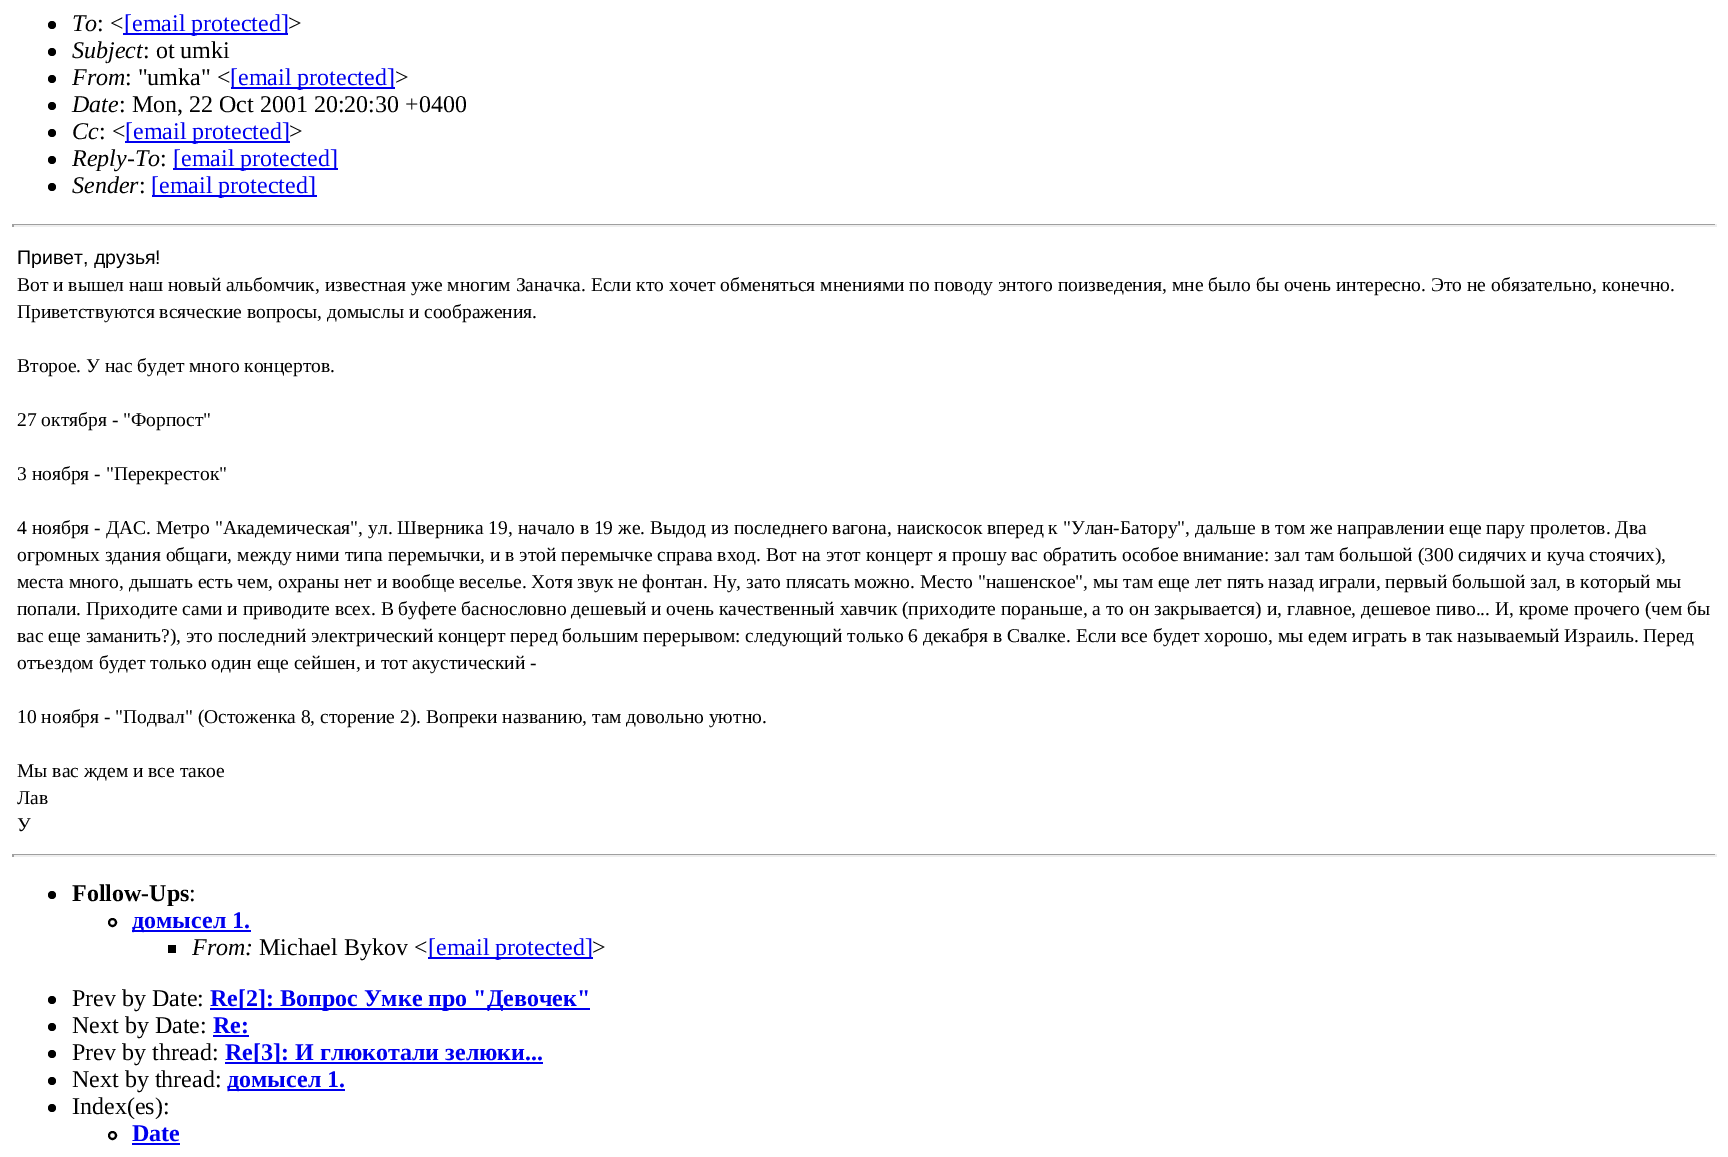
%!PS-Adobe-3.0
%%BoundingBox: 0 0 1728 1157
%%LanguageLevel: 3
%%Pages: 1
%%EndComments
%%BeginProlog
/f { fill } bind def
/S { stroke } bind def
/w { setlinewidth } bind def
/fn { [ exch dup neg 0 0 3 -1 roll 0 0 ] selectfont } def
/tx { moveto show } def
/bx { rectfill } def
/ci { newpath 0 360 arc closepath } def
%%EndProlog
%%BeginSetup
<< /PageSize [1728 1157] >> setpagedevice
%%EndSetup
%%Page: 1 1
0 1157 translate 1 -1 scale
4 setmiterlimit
1 setgray
0 0 1728 1157 bx
0 setgray
52 25 4 ci f
/LiberationSerif-Italic 24 fn
(To) 72 31 tx
/LiberationSerif-Regular 24 fn
(: <) 97 31 tx
0 0 0.933 setrgbcolor
123 33 165 2 bx
([email protected]) 124 31 tx
0 setgray
(>) 288 31 tx
52 52 4 ci f
/LiberationSerif-Italic 24 fn
(Subject) 72 58 tx
/LiberationSerif-Regular 24 fn
(: ot umki) 143 58 tx
52 79 4 ci f
/LiberationSerif-Italic 24 fn
(From) 72 85 tx
/LiberationSerif-Regular 24 fn
(: "umka" <) 125 85 tx
0 0 0.933 setrgbcolor
231 87 164 2 bx
([email protected]) 230 85 tx
0 setgray
(>) 395 85 tx
52 106 4 ci f
/LiberationSerif-Italic 24 fn
(Date) 72 112 tx
/LiberationSerif-Regular 24 fn
(: Mon, 22 Oct 2001 20:20:30 +0400) 119 112 tx
52 133 4 ci f
/LiberationSerif-Italic 24 fn
(Cc) 72 139 tx
/LiberationSerif-Regular 24 fn
(: <) 99 139 tx
0 0 0.933 setrgbcolor
125 141 165 2 bx
([email protected]) 125 139 tx
0 setgray
(>) 289 139 tx
52 160 4 ci f
/LiberationSerif-Italic 24 fn
(Reply-To) 72 166 tx
/LiberationSerif-Regular 24 fn
(:) 160 166 tx
0 0 0.933 setrgbcolor
173 168 165 2 bx
([email protected]) 173 166 tx
0 setgray
52 187 4 ci f
/LiberationSerif-Italic 24 fn
(Sender) 72 193 tx
/LiberationSerif-Regular 24 fn
(:) 139 193 tx
0 0 0.933 setrgbcolor
152 195 165 2 bx
([email protected]) 151 193 tx
0.624 setgray
12 224 1704 1 bx
0.933 setgray
1715 224 2 3 bx
12 225 1704 2 bx
0.624 setgray
12 224 2 3 bx
/LiberationSans-Regular 19.5 fn
0 setgray
(Привет, друзья!) 17 264 tx
/LiberationSerif-Regular 19.5 fn
(Вот и вышел наш новый альбомчик, известная уже многим Заначка. Если кто хочет обменяться мнениями по поводу энтого поизведения, мне было бы очень интересно. Это не обязательно, конечно.) 17 291 tx
(Приветствуются всяческие вопросы, домыслы и соображения.) 17 318 tx
(Второе. У нас будет много концертов.) 17 372 tx
(27 октября - "Форпост") 17 426 tx
(3 ноября - "Перекресток") 17 480 tx
(4 ноября - ДАС. Метро "Академическая", ул. Шверника 19, начало в 19 же. Выдод из последнего вагона, наискосок вперед к "Улан-Батору", дальше в том же направлении еще пару пролетов. Два) 17 534 tx
(огромных здания общаги, между ними типа перемычки, и в этой перемычке справа вход. Вот на этот концерт я прошу вас обратить особое внимание: зал там большой \(300 сидячих и куча стоячих\),) 17 561 tx
(места много, дышать есть чем, охраны нет и вообще веселье. Хотя звук не фонтан. Ну, зато плясать можно. Место "нашенское", мы там еще лет пять назад играли, первый большой зал, в который мы) 17 588 tx
(попали. Приходите сами и приводите всех. В буфете баснословно дешевый и очень качественный хавчик \(приходите пораньше, а то он закрывается\) и, главное, дешевое пиво... И, кроме прочего \(чем бы) 17 615 tx
(вас еще заманить?\), это последний электрический концерт перед большим перерывом: следующий только 6 декабря в Свалке. Если все будет хорошо, мы едем играть в так называемый Израиль. Перед) 17 642 tx
(отъездом будет только один еще сейшен, и тот акустический -) 17 669 tx
(10 ноября - "Подвал" \(Остоженка 8, сторение 2\). Вопреки названию, там довольно уютно.) 17 723 tx
(Мы вас ждем и все такое) 17 777 tx
(Лав) 17 804 tx
(У) 17 831 tx
0.624 setgray
12 854 1704 1 bx
0.933 setgray
1715 854 2 3 bx
12 855 1704 2 bx
0.624 setgray
12 854 2 3 bx
0 setgray
52 895 4 ci f
/LiberationSerif-Bold 24 fn
(Follow-Ups) 72 901 tx
/LiberationSerif-Regular 24 fn
(:) 189 901 tx
2 w
112.5 922.5 3.5 ci S
0 0 0.933 setrgbcolor
132 930 119 2 bx
/LiberationSerif-Bold 24 fn
(домысел 1.) 132 928 tx
0 setgray
168 945 8 8 bx
/LiberationSerif-Italic 24 fn
(From:) 192 955 tx
/LiberationSerif-Regular 24 fn
(Michael Bykov <) 259 955 tx
0 0 0.933 setrgbcolor
428 957 165 2 bx
([email protected]) 428 955 tx
0 setgray
(>) 592 955 tx
52 1000 4 ci f
(Prev by Date:) 72 1006 tx
0 0 0.933 setrgbcolor
210 1008 380 2 bx
/LiberationSerif-Bold 24 fn
(Re[2]: Вопрос Умке про "Девочек") 210 1006 tx
0 setgray
52 1027 4 ci f
/LiberationSerif-Regular 24 fn
(Next by Date:) 72 1033 tx
/LiberationSerif-Bold 24 fn
0 0 0.933 setrgbcolor
(Re:) 213 1033 tx
213 1035 36 2 bx
0 setgray
52 1054 4 ci f
/LiberationSerif-Regular 24 fn
(Prev by thread:) 72 1060 tx
0 0 0.933 setrgbcolor
225 1062 318 2 bx
/LiberationSerif-Bold 24 fn
(Re[3]: И глюкотали зелюки...) 225 1060 tx
0 setgray
52 1081 4 ci f
/LiberationSerif-Regular 24 fn
(Next by thread:) 72 1087 tx
0 0 0.933 setrgbcolor
228 1089 117 2 bx
/LiberationSerif-Bold 24 fn
(домысел 1.) 227 1087 tx
0 setgray
52 1108 4 ci f
/LiberationSerif-Regular 24 fn
(Index\(es\):) 72 1114 tx
112.5 1135.5 3.5 ci S
/LiberationSerif-Bold 24 fn
0 0 0.933 setrgbcolor
(Date) 132 1141 tx
132 1143 48 2 bx
showpage
%%EOF
